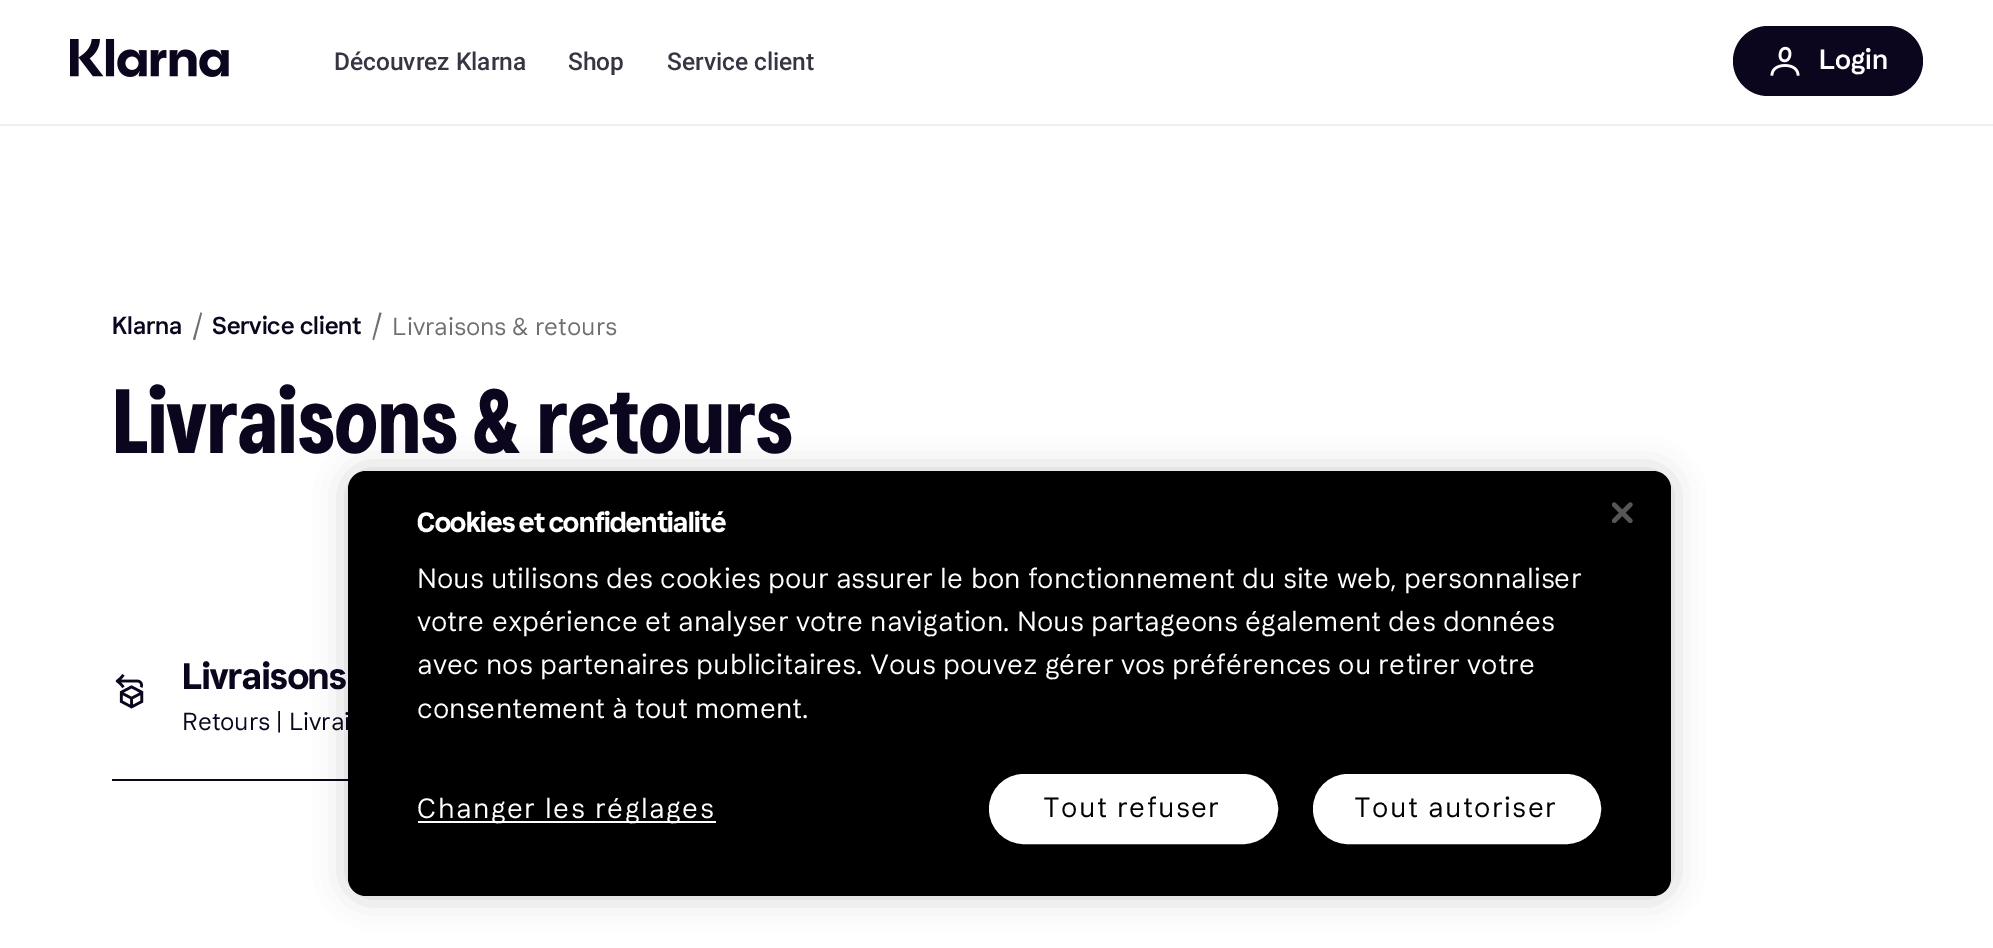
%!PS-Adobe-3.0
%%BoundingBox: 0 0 1993 948
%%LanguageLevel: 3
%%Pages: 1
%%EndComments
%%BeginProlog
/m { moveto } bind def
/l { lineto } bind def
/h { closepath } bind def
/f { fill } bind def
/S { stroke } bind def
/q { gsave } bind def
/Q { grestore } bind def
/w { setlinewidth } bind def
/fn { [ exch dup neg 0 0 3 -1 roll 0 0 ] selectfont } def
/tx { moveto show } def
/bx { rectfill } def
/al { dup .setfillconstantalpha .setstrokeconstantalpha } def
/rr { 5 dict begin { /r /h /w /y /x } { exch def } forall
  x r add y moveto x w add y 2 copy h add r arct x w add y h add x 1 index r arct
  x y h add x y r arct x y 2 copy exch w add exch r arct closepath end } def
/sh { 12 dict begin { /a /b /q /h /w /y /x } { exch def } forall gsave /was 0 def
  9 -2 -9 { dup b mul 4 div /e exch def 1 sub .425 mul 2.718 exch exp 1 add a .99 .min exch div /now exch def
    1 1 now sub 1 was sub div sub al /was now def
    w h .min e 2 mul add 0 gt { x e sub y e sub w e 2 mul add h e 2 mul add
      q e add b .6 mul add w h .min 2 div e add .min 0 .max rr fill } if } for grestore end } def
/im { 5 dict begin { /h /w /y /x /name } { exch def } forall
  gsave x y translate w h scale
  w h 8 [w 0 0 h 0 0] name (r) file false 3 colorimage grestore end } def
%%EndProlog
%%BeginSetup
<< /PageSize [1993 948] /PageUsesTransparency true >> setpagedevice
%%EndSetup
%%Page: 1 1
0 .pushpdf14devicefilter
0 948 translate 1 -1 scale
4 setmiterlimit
1 setgray
0 0 1993 948 bx
0.941 setgray
0 124 1993 2 bx
(image0.raw) 70 39 159 38 im
/Roboto-Medium 24.5 fn
0.216 0.208 0.267 setrgbcolor
(Découvrez Klarna) 334 70 tx
(Shop) 568 70 tx
(Service client) 667 70 tx
0.043 0.02 0.114 setrgbcolor
1733 26 190 70 35 rr f
(image1.raw) 1770 46 30 30 im
/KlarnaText-Medium 28 fn
1 setgray
1819 69 m -0.1 0 (Login) ashow
/KlarnaText-Medium 24.5 fn
0.043 0.02 0.114 setrgbcolor
112 334 m -0.1 0 (Klarna) ashow
0.435 setgray
200.5 312.5 m 202 313 l 195 340 l 193 339.5 l h f
0.043 0.02 0.114 setrgbcolor
212 334 m -0.1 0 (Service client) ashow
0.435 setgray
379.5 312.5 m 381.5 313 l 374 340 l 372.5 339.5 l h f
/KlarnaText-Regular 24.5 fn
392 335 m -0.1 0 (Livraisons & retours) ashow
/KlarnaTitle-Bold 91 fn
0.043 0.02 0.114 setrgbcolor
112 453 m 0.6 0 (Livraisons & retours) ashow
112 779 236 2 bx
(image2.raw) 115 674 29 35 im
/KlarnaText-Bold 36.75 fn
182 689 m -0.1 0 (Livraisons) ashow
q
182 711 746 26 rectclip
/KlarnaText-Regular 24.5 fn
182 730 m -0.1 0 (Retours | Livrai) ashow
Q
0 setgray
348 471 1323 425 18 16 0.2 sh
348 471 1323 425 18 rr f
/KlarnaText-Bold 28 fn
1 setgray
417 532 m -0.35 0 (Cookies et confidentialité) ashow
/KlarnaText-Regular 28 fn
(Nous utilisons des cookies pour assurer le bon fonctionnement du site web, personnaliser) 417 588 tx
(votre expérience et analyser votre navigation. Nous partageons également des données) 417 631 tx
(avec nos partenaires publicitaires. Vous pouvez gérer vos préférences ou retirer votre) 417 674 tx
(consentement à tout moment.) 417 718 tx
(image3.raw) 1612 502 21 21 im
418 821 298 2 bx
417 818 m 1.4 0 (Changer les réglages) ashow
990 775 287 68 34 rr q f Q
2 w
S
0 setgray
1043 817 m 1.4 0 (Tout refuser) ashow
1 setgray
1314 775 286 68 34 rr q f Q
S
0 setgray
1354 817 m 1.4 0 (Tout autoriser) ashow
.poppdf14devicefilter showpage
%%EOF
